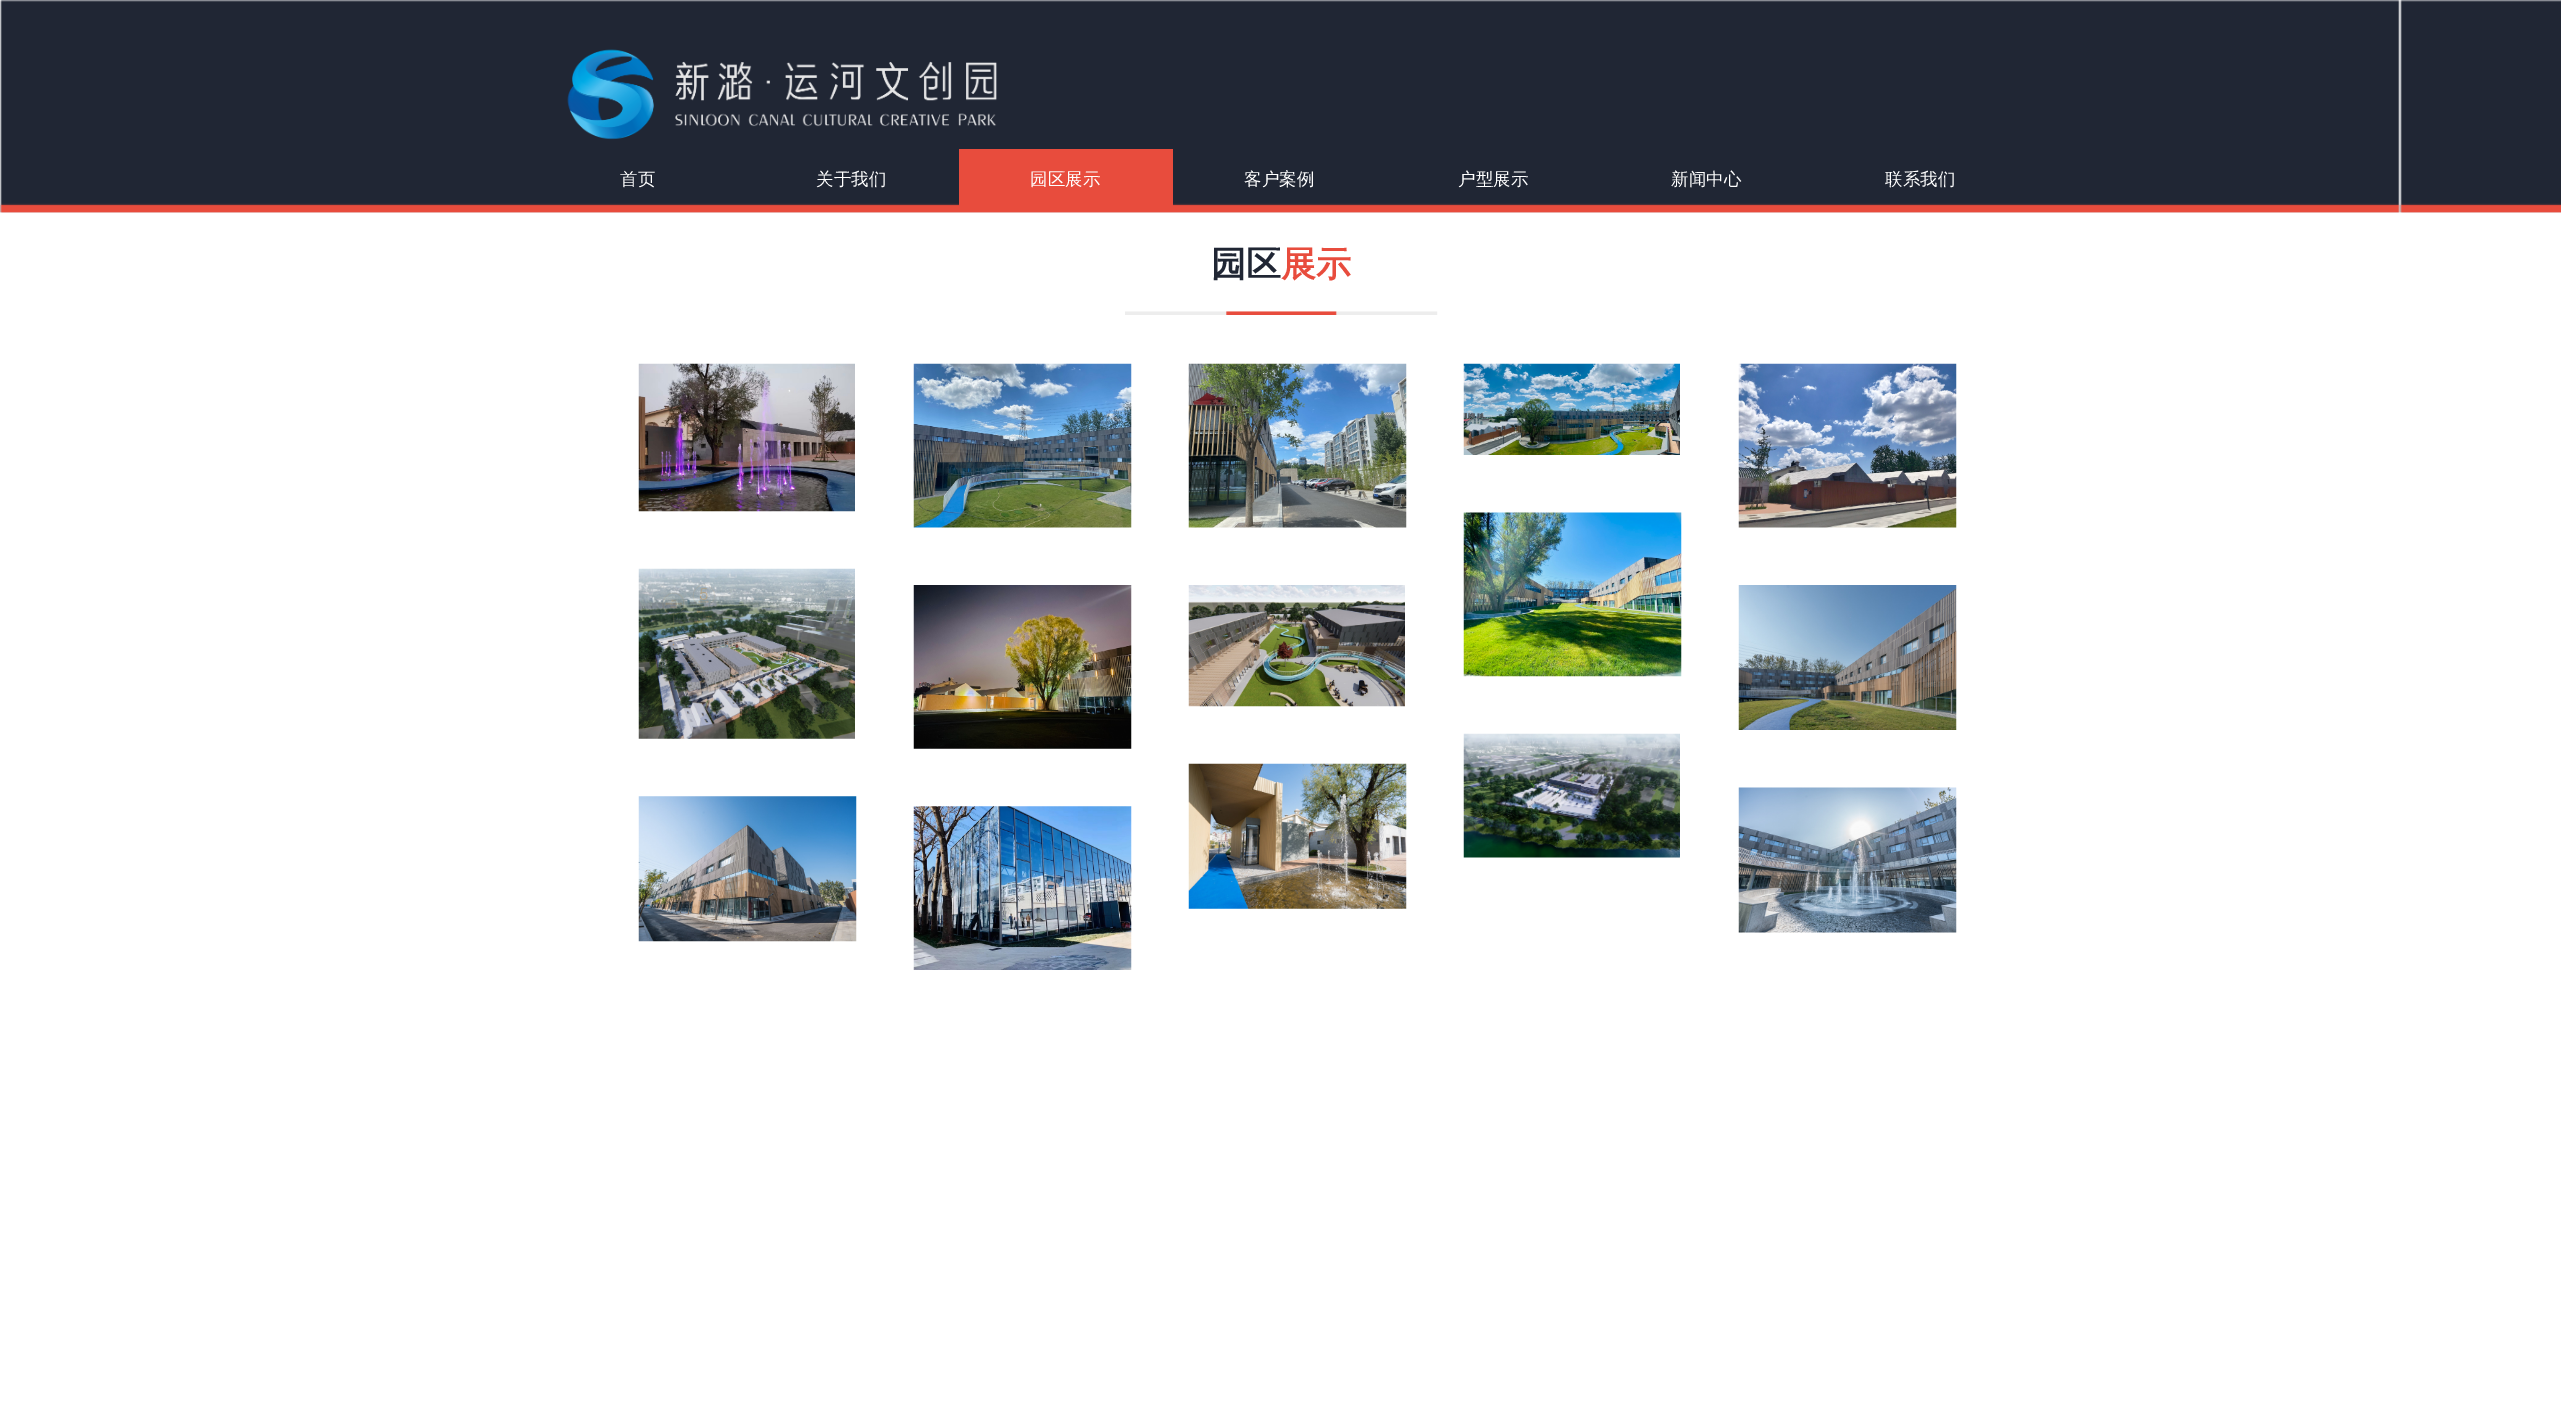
%!PS-Adobe-3.0
%%BoundingBox: 0 0 2561 1416
%%LanguageLevel: 3
%%Pages: 1
%%EndComments
%%BeginProlog
/fn { [ exch dup neg 0 0 3 -1 roll 0 0 ] selectfont } def
/tx { moveto show } def
/bx { rectfill } def
/im { 5 dict begin { /h /w /y /x /name } { exch def } forall
  gsave x y translate w h scale
  w h 8 [w 0 0 h 0 0] name (r) file false 3 colorimage grestore end } def
%%EndProlog
%%BeginSetup
<< /PageSize [2561 1416] >> setpagedevice
%%EndSetup
%%Page: 1 1
0 1416 translate 1 -1 scale
4 setmiterlimit
1 setgray
0 0 2561 1416 bx
(image0.raw) 0 0 2561 213 im
(image1.raw) 567 49 430 91 im
/WenQuanYiZenHei-Medium 17.5 fn
(首页) 620 185 tx
(关于我们) 816 185 tx
0.91 0.298 0.239 setrgbcolor
959 149 214 57 bx
1 setgray
(园区展示) 1030 185 tx
(客户案例) 1244 185 tx
(户型展示) 1458 185 tx
(新闻中心) 1671 185 tx
(联系我们) 1885 185 tx
/WenQuanYiZenHei-Bold 35 fn
0.125 0.149 0.204 setrgbcolor
(园区) 1211 276 tx
0.91 0.298 0.239 setrgbcolor
(展示) 1281 276 tx
(image2.raw) 1125 311 313 4 im
(image3.raw) 638 363 217 149 im
(image4.raw) 913 363 219 165 im
(image5.raw) 1188 363 219 165 im
(image6.raw) 1463 363 217 92 im
(image7.raw) 1738 363 219 165 im
(image8.raw) 638 568 217 171 im
(image9.raw) 913 585 219 164 im
(image10.raw) 1188 585 217 122 im
(image11.raw) 1463 512 219 165 im
(image12.raw) 1738 585 219 145 im
(image13.raw) 638 796 219 146 im
(image14.raw) 913 806 219 164 im
(image15.raw) 1188 763 219 146 im
(image16.raw) 1463 733 217 125 im
(image17.raw) 1738 787 219 146 im
showpage
%%EOF
